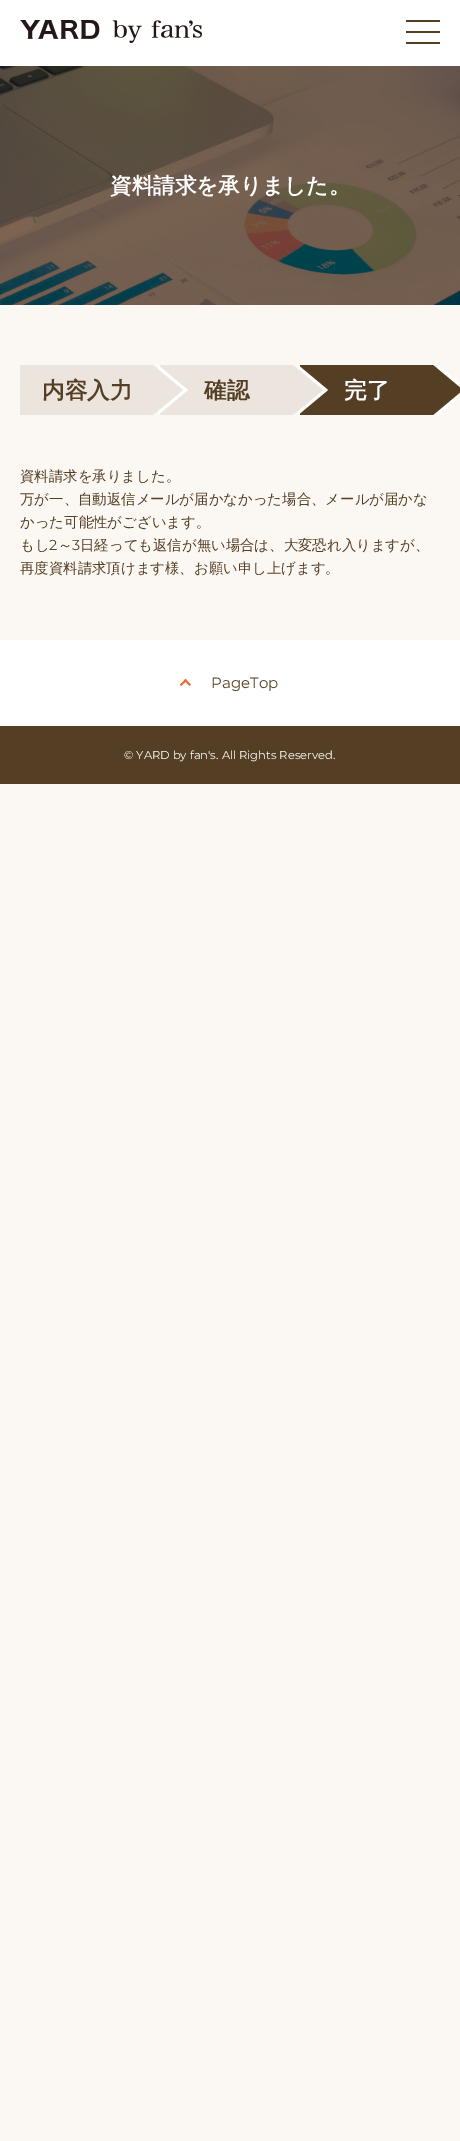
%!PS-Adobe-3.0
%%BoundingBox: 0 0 460 2141
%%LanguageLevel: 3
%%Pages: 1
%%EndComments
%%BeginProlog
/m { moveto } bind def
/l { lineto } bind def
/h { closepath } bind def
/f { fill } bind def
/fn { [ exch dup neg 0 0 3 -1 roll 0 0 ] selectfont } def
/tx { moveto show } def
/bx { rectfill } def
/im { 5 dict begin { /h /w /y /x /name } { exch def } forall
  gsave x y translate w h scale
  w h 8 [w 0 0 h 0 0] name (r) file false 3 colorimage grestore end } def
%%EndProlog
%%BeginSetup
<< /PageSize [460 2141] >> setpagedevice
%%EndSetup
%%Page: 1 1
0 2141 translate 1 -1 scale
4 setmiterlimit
0.984 0.969 0.953 setrgbcolor
0 0 460 2141 bx
1 setgray
0 0 460 66 bx
(image0.raw) 20 20 182 23 im
0.333 0.247 0.141 setrgbcolor
406 20 34 2 bx
406 31 34 2 bx
406 42 34 2 bx
(image1.raw) 0 66 460 239 im
/WenQuanYiZenHei-Bold 21.6 fn
1 setgray
(資料請求を承りました。) 110 193 tx
0.922 0.898 0.867 setrgbcolor
20 365 133 50 bx
1 setgray
153 365 2 50 bx
0.922 0.898 0.867 setrgbcolor
160 365 133 50 bx
1 setgray
158 415 m 158 365 l 188 390 l h f
0.922 0.898 0.867 setrgbcolor
153 415 m 153 365 l 183 390 l h f
/WenQuanYiZenHei-Bold 22.5 fn
0.333 0.247 0.141 setrgbcolor
(内容入力) 42 398 tx
1 setgray
293 365 2 50 bx
0.333 0.247 0.141 setrgbcolor
300 365 133 50 bx
1 setgray
298 415 m 298 365 l 328 390 l h f
0.922 0.898 0.867 setrgbcolor
293 415 m 293 365 l 323 390 l h f
0.333 0.247 0.141 setrgbcolor
(確認) 204 398 tx
1 setgray
433 365 2 50 bx
438 415 m 438 365 l 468 390 l h f
0.333 0.247 0.141 setrgbcolor
433 415 m 433 365 l 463 390 l h f
1 setgray
(完了) 344 398 tx
/WenQuanYiZenHei-Medium 14.4 fn
0.333 0.247 0.141 setrgbcolor
(資料請求を承りました。) 20 481 tx
(万が一、自動返信メールが届かなかった場合、メールが届かな) 20 504 tx
(かった可能性がございます。) 20 527 tx
(もし) 20 550 tx
/Montserrat-Regular 14.4 fn
(2) 49 550 tx
/WenQuanYiZenHei-Medium 14.4 fn
(～) 58 550 tx
/Montserrat-Regular 14.4 fn
(3) 72 550 tx
/WenQuanYiZenHei-Medium 14.4 fn
(日経っても返信が無い場合は、大変恐れ入りますが、) 80 550 tx
(再度資料請求頂けます様、お願い申し上げます。) 20 573 tx
1 setgray
0 640 460 86 bx
0.925 0.42 0.22 setrgbcolor
180 684.5 m 185.5 679 l 187 680.5 l 181 686 l h f
184 680.5 m 185.5 679 l 191 684.5 l 189.5 686 l h f
/Montserrat-Regular 15 fn
0.333 0.247 0.141 setrgbcolor
(PageTop) 211 688 tx
0 726 460 58 bx
/Montserrat-Regular 11.5 fn
1 setgray
(© YARD by fan's. All Rights Reserved.) 124 759 tx
showpage
%%EOF
